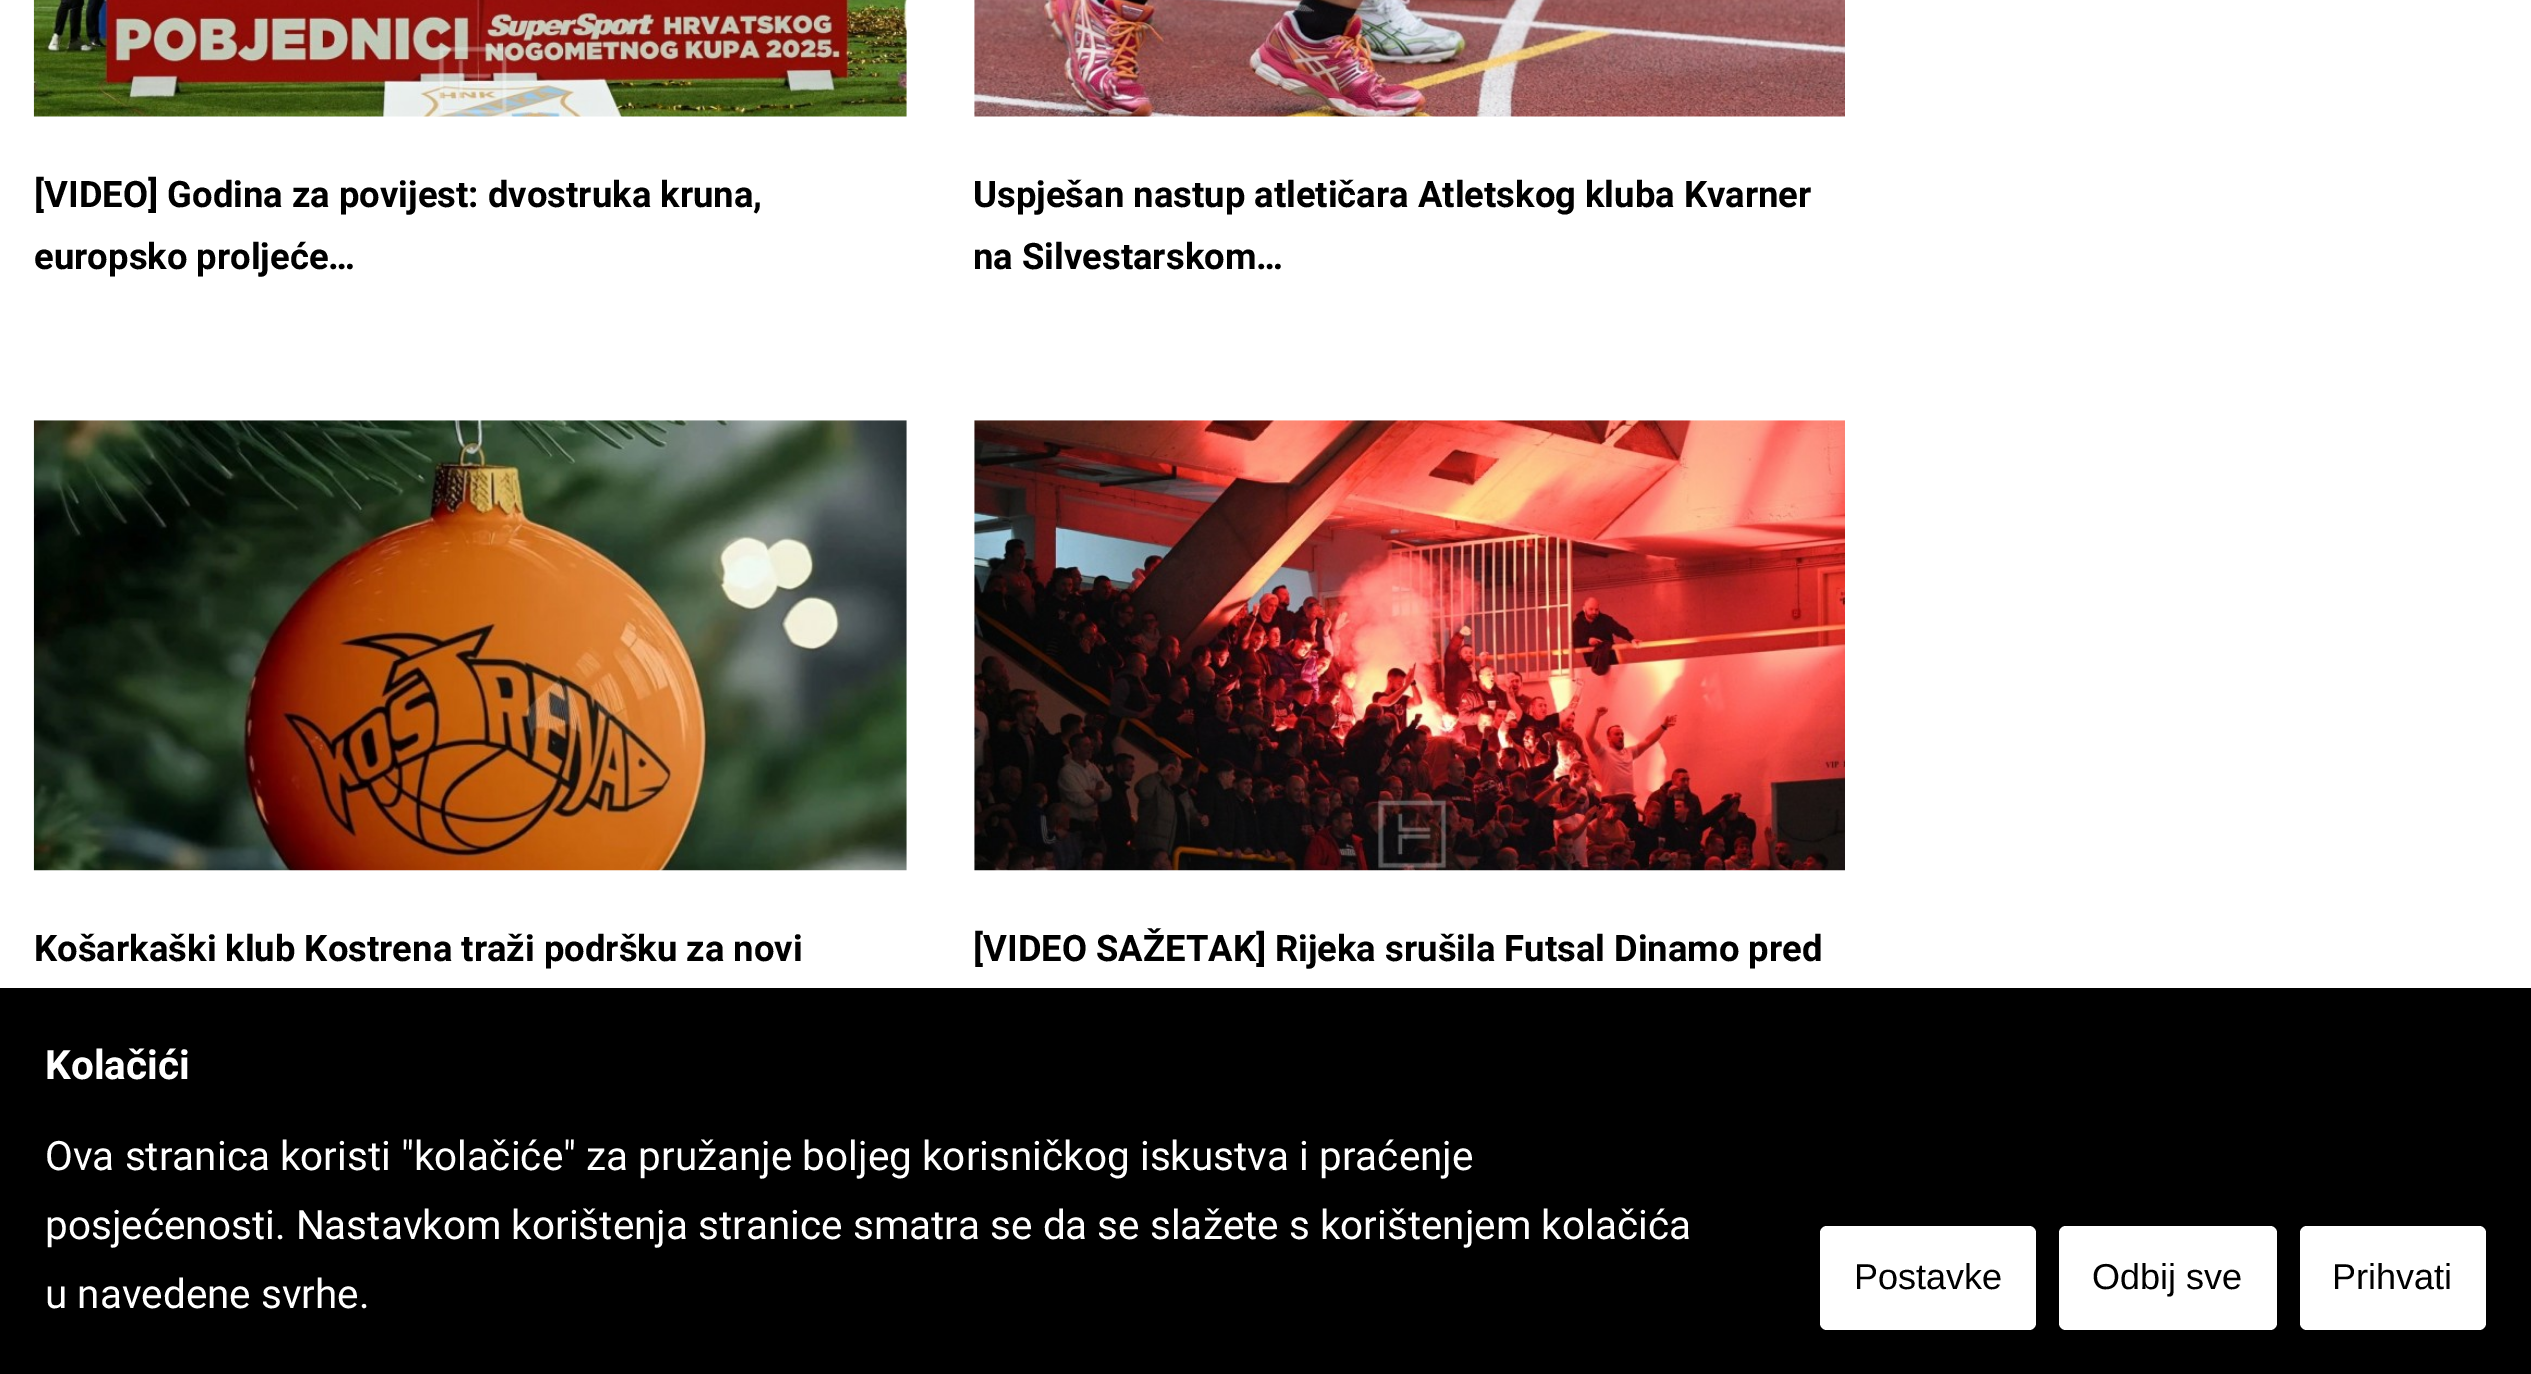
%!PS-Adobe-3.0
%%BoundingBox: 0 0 2531 1374
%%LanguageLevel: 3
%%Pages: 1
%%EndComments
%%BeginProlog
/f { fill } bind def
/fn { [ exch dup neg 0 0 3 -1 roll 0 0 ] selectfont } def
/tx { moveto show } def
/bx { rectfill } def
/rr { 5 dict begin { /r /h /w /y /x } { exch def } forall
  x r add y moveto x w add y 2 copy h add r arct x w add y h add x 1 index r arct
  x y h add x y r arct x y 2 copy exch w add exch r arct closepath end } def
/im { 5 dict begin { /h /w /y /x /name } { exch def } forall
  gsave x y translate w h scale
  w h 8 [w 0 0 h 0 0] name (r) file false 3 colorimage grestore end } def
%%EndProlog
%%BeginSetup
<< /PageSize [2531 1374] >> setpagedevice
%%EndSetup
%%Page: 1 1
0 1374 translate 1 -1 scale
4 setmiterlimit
1 setgray
0 0 2531 1374 bx
(image0.raw) 33 0 874 117 im
/Roboto-Bold 36.45 fn
0 setgray
([VIDEO] Godina za povijest: dvostruka kruna,) 34 207 tx
(europsko proljeće…) 34 269 tx
(image1.raw) 974 0 871 117 im
(Uspješan nastup atletičara Atletskog kluba Kvarner) 973 207 tx
(na Silvestarskom…) 973 269 tx
(image2.raw) 33 420 874 451 im
(Košarkaški klub Kostrena traži podršku za novi) 34 961 tx
(image3.raw) 974 420 871 451 im
([VIDEO SAŽETAK] Rijeka srušila Futsal Dinamo pred) 973 961 tx
0 988 2531 386 bx
/Roboto-Bold 40.5 fn
1 setgray
(Kolačići) 45 1079 tx
/Roboto-Regular 40.5 fn
(Ova stranica koristi "kolačiće" za pružanje boljeg korisničkog iskustva i praćenje) 45 1170 tx
(posjećenosti. Nastavkom korištenja stranice smatra se da se slažete s korištenjem kolačića) 45 1239 tx
(u navedene svrhe.) 45 1308 tx
1820 1226 216 104 7 rr f
/LiberationSans-Regular 36 fn
0 setgray
(Postavke) 1854 1289 tx
1 setgray
2059 1226 218 104 7 rr f
0 setgray
(Odbij sve) 2092 1289 tx
1 setgray
2300 1226 186 104 7 rr f
0 setgray
(Prihvati) 2332 1289 tx
showpage
%%EOF
